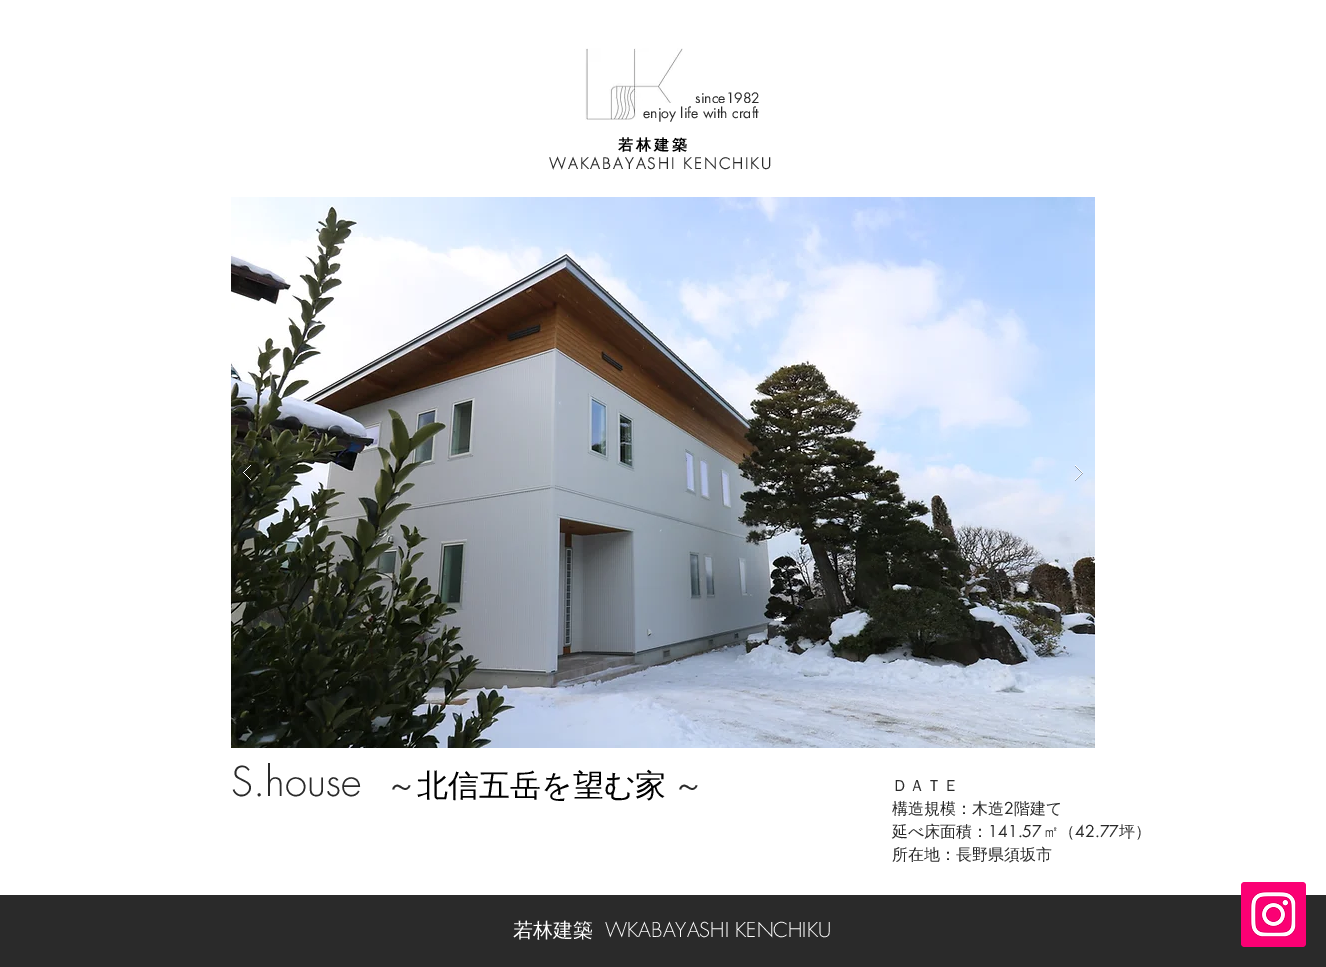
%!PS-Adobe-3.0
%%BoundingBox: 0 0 1326 967
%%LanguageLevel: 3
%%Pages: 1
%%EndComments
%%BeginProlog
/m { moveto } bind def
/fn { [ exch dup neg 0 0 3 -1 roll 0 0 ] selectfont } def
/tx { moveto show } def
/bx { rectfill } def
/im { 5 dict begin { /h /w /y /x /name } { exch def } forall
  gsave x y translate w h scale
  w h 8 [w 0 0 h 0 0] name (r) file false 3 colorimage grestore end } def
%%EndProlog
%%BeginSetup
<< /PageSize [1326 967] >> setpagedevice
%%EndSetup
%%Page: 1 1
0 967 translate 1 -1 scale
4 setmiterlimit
1 setgray
0 0 1326 967 bx
(image0.raw) 585 48 98 72 im
/futura-Regular 14 fn
0.165 setgray
(since1982) 695 103 tx
1 setgray
665 103 83 17 bx
0.165 setgray
(enjoy life with craft) 643 118 tx
/WenQuanYiZenHei-Bold 15 fn
0 setgray
618 150 m -1 0 32 (若 林) widthshow
(建) 654 150 tx
(築) 672 150 tx
/futura-Bold 15 fn
0.165 setgray
549 169 m 2.25 0 (WAKABAYASHI KENCHIKU) ashow
(image1.raw) 231 197 864 551 im
(image2.raw) 243 465 8 15 im
(image3.raw) 1075 465 8 16 im
/futura-Light 40 fn
(S.house) 231 796 tx
/WenQuanYiZenHei-Medium 31 fn
(～) 386 796 tx
0 setgray
(北信五岳を望む) 417 796 tx
635 796 m 7 0 (家) ashow
0.165 setgray
(～) 673 796 tx
/WenQuanYiZenHei-Medium 16 fn
892 791 m 1 0 (ＤＡＴＥ) ashow
(構造規模：木造) 892 814 tx
/futura-Regular 16 fn
(2) 1004 814 tx
/WenQuanYiZenHei-Medium 16 fn
(階建て) 1014 814 tx
(延べ床面積：) 892 837 tx
/futura-Regular 16 fn
(141.57) 988 837 tx
/WenQuanYiZenHei-Medium 16 fn
(㎡（) 1043 837 tx
/futura-Regular 16 fn
(42.77) 1075 837 tx
/WenQuanYiZenHei-Medium 16 fn
(坪）) 1119 837 tx
(所在地：長野県須坂市) 892 860 tx
0 895 1326 72 bx
/WenQuanYiZenHei-Medium 20 fn
1 setgray
(若林建築) 513 937 tx
/futura-Light 20 fn
(WKABAYASHI KENCHIKU) 605 937 tx
(image4.raw) 1241 882 65 65 im
showpage
%%EOF
